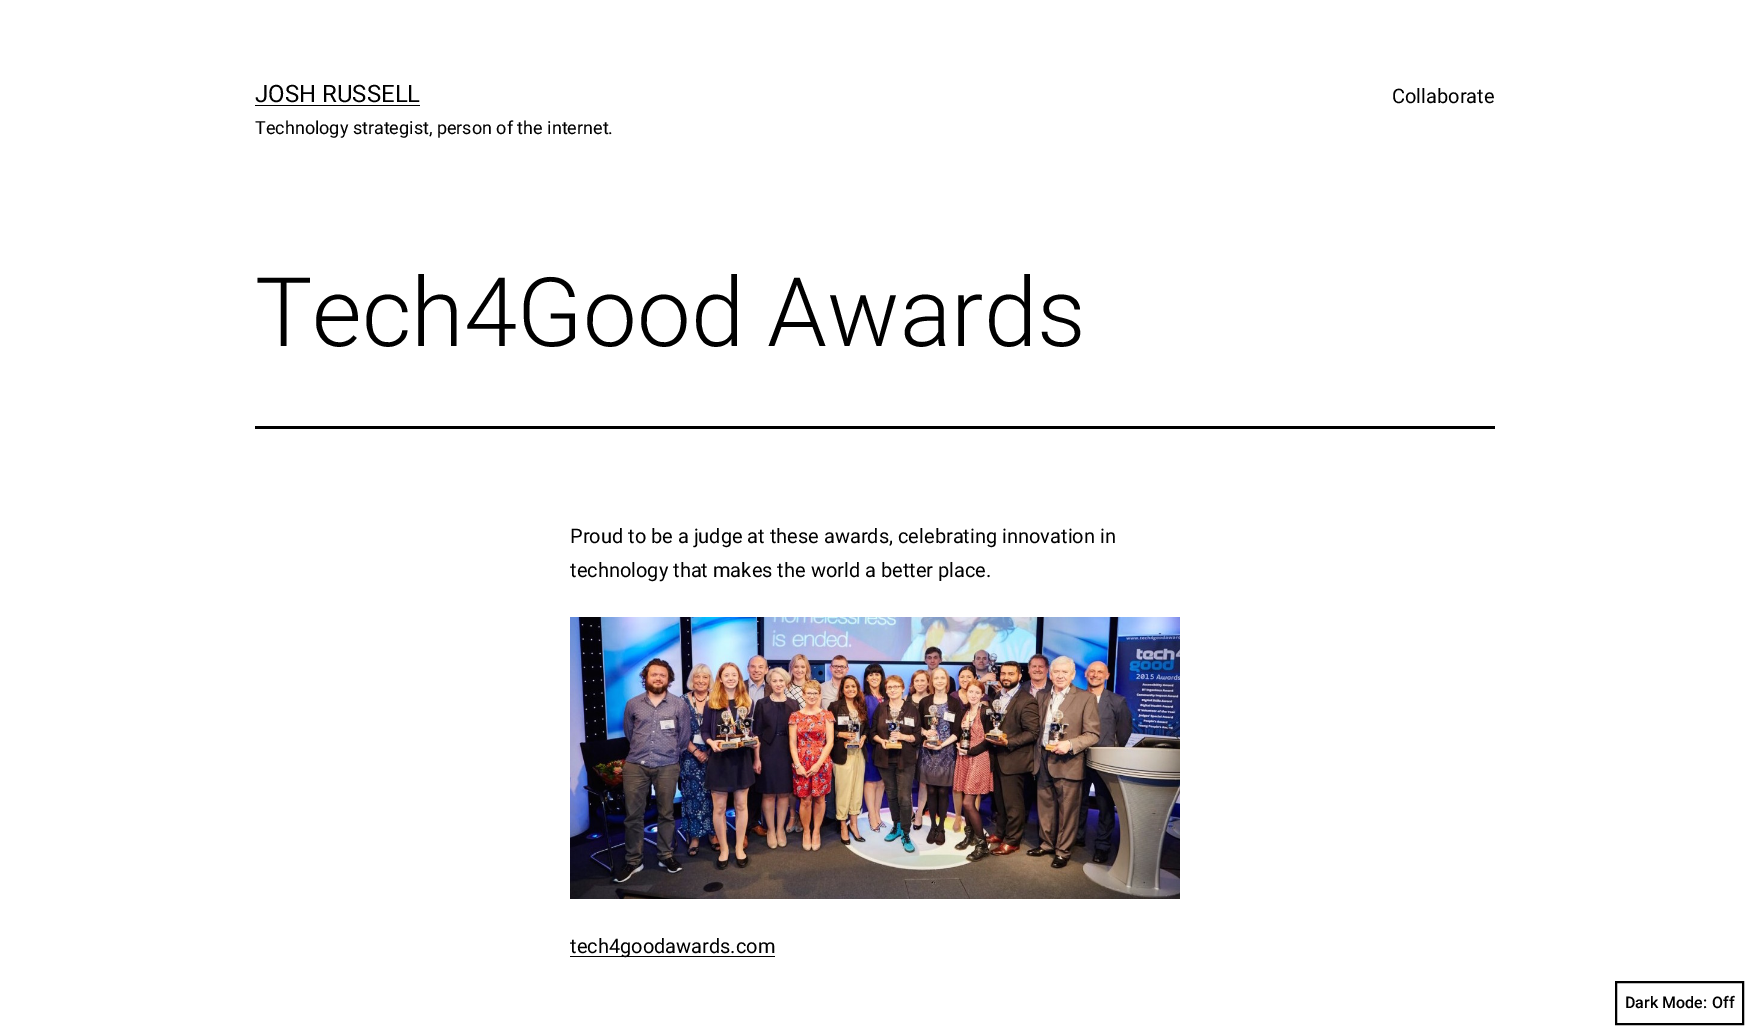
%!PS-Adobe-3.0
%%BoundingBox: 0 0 1749 1030
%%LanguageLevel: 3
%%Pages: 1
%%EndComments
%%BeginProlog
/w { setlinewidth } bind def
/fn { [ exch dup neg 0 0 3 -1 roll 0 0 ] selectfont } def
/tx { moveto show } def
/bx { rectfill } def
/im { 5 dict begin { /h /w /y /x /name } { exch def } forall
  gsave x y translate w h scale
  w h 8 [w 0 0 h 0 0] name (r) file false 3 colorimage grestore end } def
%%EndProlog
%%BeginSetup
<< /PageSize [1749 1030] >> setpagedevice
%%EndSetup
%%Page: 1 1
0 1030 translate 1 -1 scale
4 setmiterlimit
1 setgray
0 0 1749 1030 bx
/Roboto-Regular 24 fn
0 setgray
(JOSH RUSSELL) 255 102 tx
255 105 165 1 bx
/Roboto-Regular 18 fn
(Technology strategist, person of the internet.) 255 134 tx
/Roboto-Regular 20 fn
(Collaborate) 1392 103 tx
255 426 1240 3 bx
/Roboto-Light 96 fn
(Tech4Good Awards) 255 346 tx
/Roboto-Regular 20 fn
(Proud to be a judge at these awards, celebrating innovation in) 570 543 tx
(technology that makes the world a better place.) 570 577 tx
(image0.raw) 570 617 610 282 im
570 956 205 1 bx
(tech4goodawards.com) 570 953 tx
2 w
1616 982 127 42 rectstroke
/Roboto-Medium 16 fn
(Dark Mode:) 1625 1008 tx
(Off) 1712 1008 tx
showpage
%%EOF
